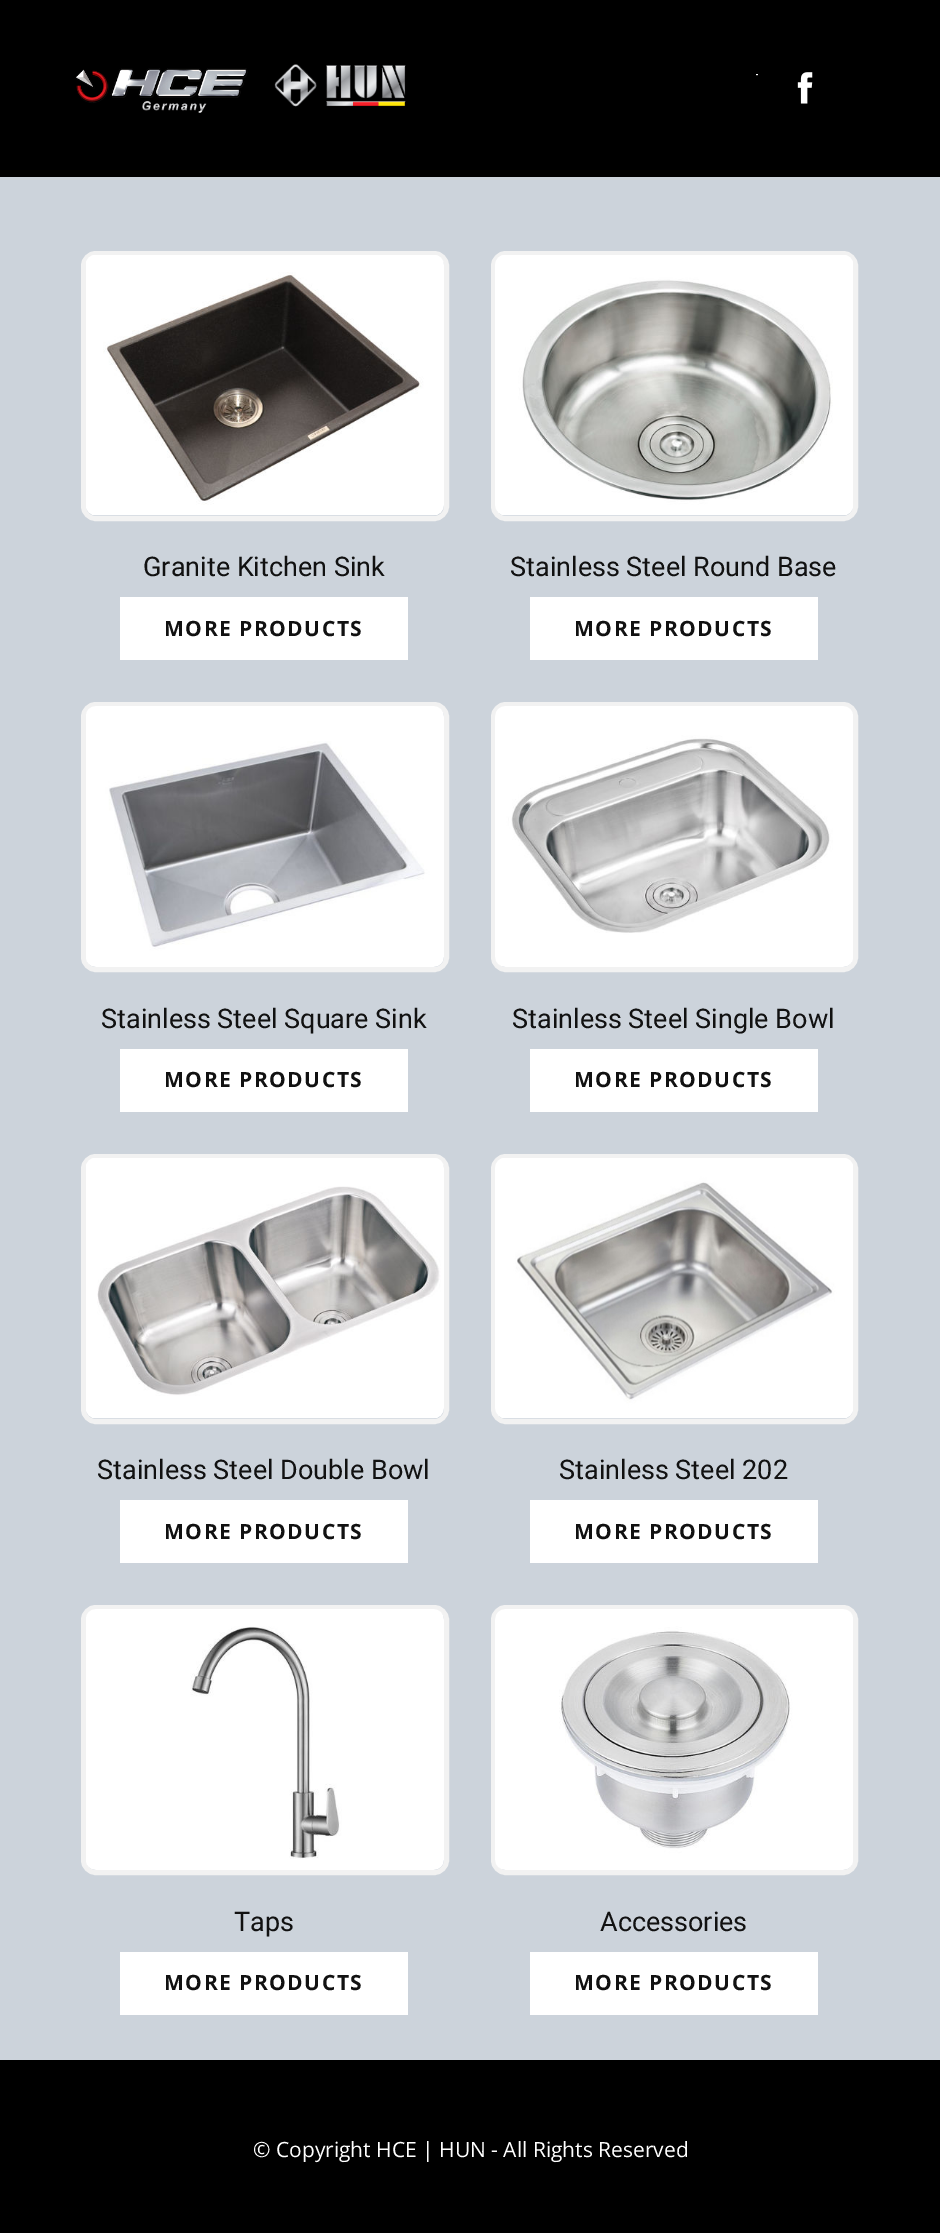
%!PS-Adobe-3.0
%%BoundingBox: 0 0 940 2233
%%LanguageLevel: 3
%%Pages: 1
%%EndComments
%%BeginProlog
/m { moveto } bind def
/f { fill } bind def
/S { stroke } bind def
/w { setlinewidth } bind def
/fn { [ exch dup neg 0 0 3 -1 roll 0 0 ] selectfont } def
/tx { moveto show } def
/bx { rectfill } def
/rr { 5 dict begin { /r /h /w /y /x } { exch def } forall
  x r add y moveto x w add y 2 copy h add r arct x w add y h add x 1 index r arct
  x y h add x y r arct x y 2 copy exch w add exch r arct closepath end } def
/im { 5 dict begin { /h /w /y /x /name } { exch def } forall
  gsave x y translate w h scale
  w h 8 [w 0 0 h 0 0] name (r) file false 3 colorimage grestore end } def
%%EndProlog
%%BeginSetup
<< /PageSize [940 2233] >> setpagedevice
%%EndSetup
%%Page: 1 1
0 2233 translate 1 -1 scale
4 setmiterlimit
0.8 0.827 0.859 setrgbcolor
0 0 940 2233 bx
0 setgray
0 0 940 177 bx
(image0.raw) 75 64 331 49 im
1 setgray
756 74 2 1 0.5 rr f
0.196 setgray
756 75 2 1 bx
(image1.raw) 797 72 16 32 im
0.949 setgray
5 w
83.5 253.5 363 265 12.5 rr S
(image2.raw) 86 255 358 261 im
/Roboto-Regular 27 fn
0.067 setgray
(Granite Kitchen Sink) 143 576 tx
1 setgray
120 597 288 63 bx
/OpenSans-Bold 21 fn
0.067 setgray
164 636 m 1.5 0 (MORE PRODUCTS) ashow
0.949 setgray
493.5 253.5 362 265 12.5 rr S
(image3.raw) 495 255 358 261 im
/Roboto-Regular 27 fn
0.067 setgray
(Stainless Steel Round Base) 510 576 tx
1 setgray
530 597 288 63 bx
/OpenSans-Bold 21 fn
0.067 setgray
574 636 m 1.5 0 (MORE PRODUCTS) ashow
0.949 setgray
83.5 704.5 363 265 12.5 rr S
(image4.raw) 86 706 358 261 im
/Roboto-Regular 27 fn
0.067 setgray
(Stainless Steel Square Sink) 101 1028 tx
1 setgray
120 1049 288 63 bx
/OpenSans-Bold 21 fn
0.067 setgray
164 1087 m 1.5 0 (MORE PRODUCTS) ashow
0.949 setgray
493.5 704.5 362 265 12.5 rr S
(image5.raw) 495 706 358 261 im
/Roboto-Regular 27 fn
0.067 setgray
(Stainless Steel Single Bowl) 512 1028 tx
1 setgray
530 1049 288 63 bx
/OpenSans-Bold 21 fn
0.067 setgray
574 1087 m 1.5 0 (MORE PRODUCTS) ashow
0.949 setgray
83.5 1156.5 363 265 12.5 rr S
(image6.raw) 86 1158 358 261 im
/Roboto-Regular 27 fn
0.067 setgray
(Stainless Steel Double Bowl) 97 1479 tx
1 setgray
120 1500 288 63 bx
/OpenSans-Bold 21 fn
0.067 setgray
164 1539 m 1.5 0 (MORE PRODUCTS) ashow
0.949 setgray
493.5 1156.5 362 265 12.5 rr S
(image7.raw) 495 1158 358 261 im
/Roboto-Regular 27 fn
0.067 setgray
(Stainless Steel 202) 559 1479 tx
1 setgray
530 1500 288 63 bx
/OpenSans-Bold 21 fn
0.067 setgray
574 1539 m 1.5 0 (MORE PRODUCTS) ashow
0.949 setgray
83.5 1607.5 363 265 12.5 rr S
(image8.raw) 86 1609 358 261 im
/Roboto-Regular 27 fn
0.067 setgray
(Taps) 234 1931 tx
1 setgray
120 1952 288 63 bx
/OpenSans-Bold 21 fn
0.067 setgray
164 1990 m 1.5 0 (MORE PRODUCTS) ashow
0.949 setgray
493.5 1607.5 362 265 12.5 rr S
(image9.raw) 495 1609 358 261 im
/Roboto-Regular 27 fn
0.067 setgray
(Accessories) 600 1931 tx
1 setgray
530 1952 288 63 bx
/OpenSans-Bold 21 fn
0.067 setgray
574 1990 m 1.5 0 (MORE PRODUCTS) ashow
0 setgray
0 2060 940 173 bx
/OpenSans-Regular 21 fn
1 setgray
(© Copyright HCE | HUN - All Rights Reserved) 253 2157 tx
showpage
%%EOF
